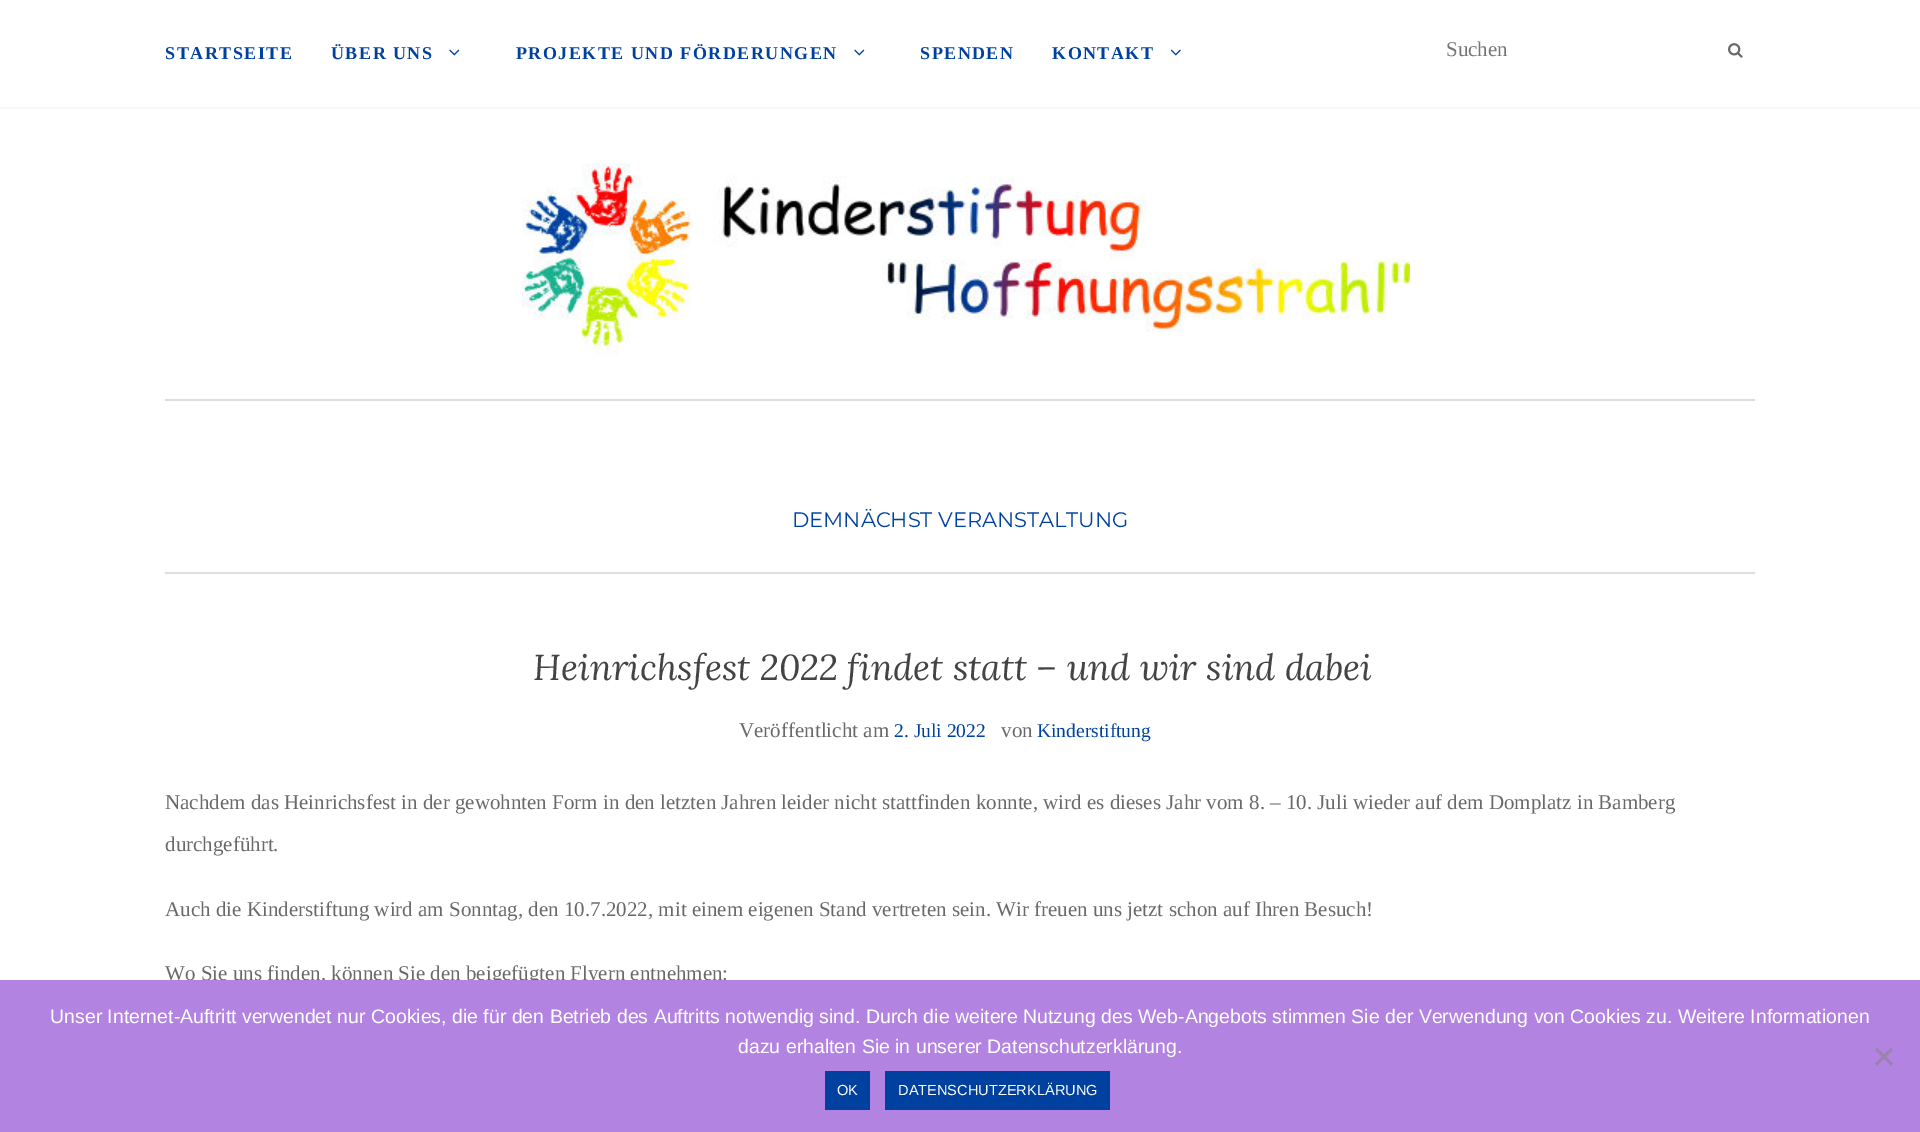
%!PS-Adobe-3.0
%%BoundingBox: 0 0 1920 1132
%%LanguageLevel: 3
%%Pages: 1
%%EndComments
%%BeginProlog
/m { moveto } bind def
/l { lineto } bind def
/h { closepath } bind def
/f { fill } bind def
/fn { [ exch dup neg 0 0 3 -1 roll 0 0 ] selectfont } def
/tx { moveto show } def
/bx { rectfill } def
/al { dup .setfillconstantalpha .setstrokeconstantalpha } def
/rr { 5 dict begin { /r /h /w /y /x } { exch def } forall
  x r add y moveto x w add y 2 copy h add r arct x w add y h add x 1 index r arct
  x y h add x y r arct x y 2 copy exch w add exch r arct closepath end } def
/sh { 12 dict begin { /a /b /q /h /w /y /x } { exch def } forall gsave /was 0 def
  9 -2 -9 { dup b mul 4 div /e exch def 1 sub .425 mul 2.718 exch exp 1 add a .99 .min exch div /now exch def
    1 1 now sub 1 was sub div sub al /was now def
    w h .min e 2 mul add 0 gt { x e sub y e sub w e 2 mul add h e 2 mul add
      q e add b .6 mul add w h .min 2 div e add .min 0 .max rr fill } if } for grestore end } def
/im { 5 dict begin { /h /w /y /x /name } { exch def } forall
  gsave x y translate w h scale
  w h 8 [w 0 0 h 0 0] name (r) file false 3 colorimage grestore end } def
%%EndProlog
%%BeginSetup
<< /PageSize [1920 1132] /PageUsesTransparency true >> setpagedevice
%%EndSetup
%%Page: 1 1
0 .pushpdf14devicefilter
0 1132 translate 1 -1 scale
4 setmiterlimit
1 setgray
0 0 1920 1132 bx
0.89 setgray
0 0 1920 107 0 1.5 1 sh
1 setgray
0 0 1920 107 bx
/LiberationSerif-Bold 18 fn
0 0.255 0.624 setrgbcolor
165 59 m 1.5 0 (STARTSEITE) ashow
331 59 m 1.5 0 (ÜBER UNS) ashow
(image0.raw) 449 49 11 7 im
516 59 m 1.5 0 (PROJEKTE UND FÖRDERUNGEN) ashow
(image0.raw) 854 49 11 7 im
920 59 m 1.5 0 (SPENDEN) ashow
1052 59 m 1.5 0 (KONTAKT) ashow
(image1.raw) 1170 49 11 7 im
/LiberationSerif-Regular 21 fn
0.459 setgray
(Suchen) 1446 56 tx
(image2.raw) 1728 43 15 15 im
(image3.raw) 522 163 888 193 im
0.867 setgray
165 399 1590 2 bx
0.871 setgray
165 572 1590 2 bx
/Montserrat-Regular 21 fn
0 0.255 0.624 setrgbcolor
(DEMNÄCHST VERANSTALTUNG) 792 527 tx
/Lora-Italic 36 fn
0.267 setgray
(Heinrichsfest 2022 findet statt – und wir sind dabei) 533 680 tx
/LiberationSerif-Regular 21 fn
0.412 setgray
(Veröffentlicht am) 739 737 tx
/LiberationSerif-Regular 19.5 fn
0 0.255 0.624 setrgbcolor
(2. Juli 2022) 894 737 tx
/LiberationSerif-Regular 21 fn
0.412 setgray
(von) 1001 737 tx
/LiberationSerif-Regular 19.5 fn
0 0.255 0.624 setrgbcolor
(Kinderstiftung) 1037 737 tx
/LiberationSerif-Regular 21 fn
0.412 setgray
(Nachdem das Heinrichsfest in der gewohnten Form in den letzten Jahren leider nicht stattfinden konnte, wird es dieses Jahr vom 8. – 10. Juli wieder auf dem Domplatz in Bamberg) 165 809 tx
(durchgeführt.) 165 851 tx
(Auch die Kinderstiftung wird am Sonntag, den 10.7.2022, mit einem eigenen Stand vertreten sein. Wir freuen uns jetzt schon auf Ihren Besuch!) 165 916 tx
(Wo Sie uns finden, können Sie den beigefügten Flyern entnehmen:) 165 980 tx
0.702 0.514 0.886 setrgbcolor
0 980 1920 152 bx
/LiberationSans-Regular 19.5 fn
1 setgray
(Unser Internet-Auftritt verwendet nur Cookies, die für den Betrieb des Auftritts notwendig sind. Durch die weitere Nutzung des Web-Angebots stimmen Sie der Verwendung von Cookies zu. Weitere Informationen) 50 1023 tx
(dazu erhalten Sie in unserer Datenschutzerklärung.) 738 1053 tx
0.604 0.51 0.694 setrgbcolor
1891 1047.5 m 1893 1050 l 1877 1066 l 1875 1063.5 l h f
1875 1050 m 1877 1047.5 l 1893 1063.5 l 1891 1066 l h f
0 0.255 0.624 setrgbcolor
825 1071 45 39 bx
/LiberationSans-Regular 14.6 fn
1 setgray
(OK) 837 1095 tx
0 0.255 0.624 setrgbcolor
885 1071 225 39 bx
1 setgray
(DATENSCHUTZERKLÄRUNG) 898 1095 tx
.poppdf14devicefilter showpage
%%EOF
